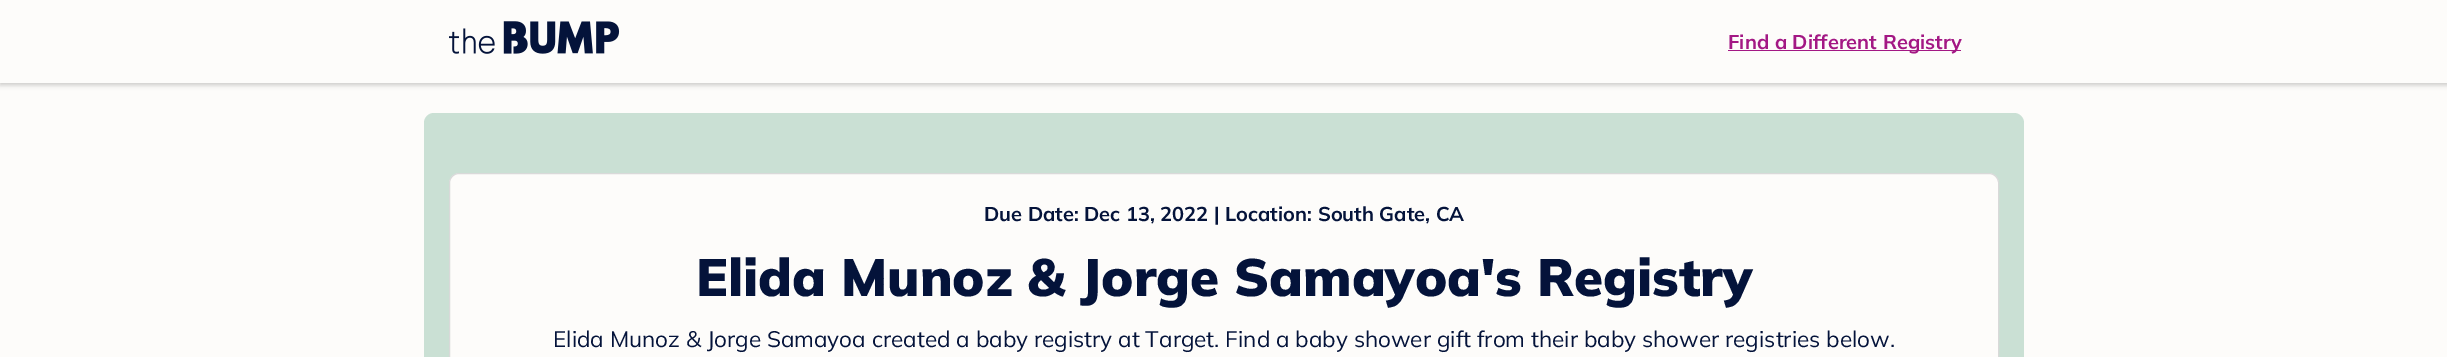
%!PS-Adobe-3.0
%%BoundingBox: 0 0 2447 357
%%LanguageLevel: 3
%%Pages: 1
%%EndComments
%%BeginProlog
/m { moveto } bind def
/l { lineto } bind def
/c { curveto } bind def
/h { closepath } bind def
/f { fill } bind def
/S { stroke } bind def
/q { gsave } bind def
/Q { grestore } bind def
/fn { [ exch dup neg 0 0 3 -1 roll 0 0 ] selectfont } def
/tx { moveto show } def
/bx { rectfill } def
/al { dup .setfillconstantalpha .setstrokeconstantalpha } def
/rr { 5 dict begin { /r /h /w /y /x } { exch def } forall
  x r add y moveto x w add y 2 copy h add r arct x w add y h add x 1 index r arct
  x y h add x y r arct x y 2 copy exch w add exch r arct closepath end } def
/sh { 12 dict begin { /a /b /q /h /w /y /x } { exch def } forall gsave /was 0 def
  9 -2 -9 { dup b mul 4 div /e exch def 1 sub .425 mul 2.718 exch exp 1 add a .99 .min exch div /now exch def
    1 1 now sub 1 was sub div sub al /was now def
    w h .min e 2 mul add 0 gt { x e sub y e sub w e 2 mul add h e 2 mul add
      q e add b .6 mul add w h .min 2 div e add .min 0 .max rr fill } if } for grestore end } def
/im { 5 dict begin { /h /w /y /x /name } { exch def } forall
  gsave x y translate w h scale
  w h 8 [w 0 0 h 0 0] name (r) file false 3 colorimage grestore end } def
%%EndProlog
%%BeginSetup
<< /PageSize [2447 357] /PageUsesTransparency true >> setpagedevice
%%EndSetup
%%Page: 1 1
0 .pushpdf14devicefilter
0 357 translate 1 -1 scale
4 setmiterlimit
0.992 0.988 0.98 setrgbcolor
0 0 2447 357 bx
q
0 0 m 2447 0 l 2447 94 l 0 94 l h 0 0 m 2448 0 l 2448 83 l 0 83 l h eoclip newpath
0 setgray
0 3 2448 82 0 2.5 0.2 sh
Q
(image0.raw) 449 21 171 33 im
0.639 0.094 0.518 setrgbcolor
1728 50 233 1 bx
/Mulish-ExtraLight 20 fn
(Find a Different Registry) 1728 49 tx
0.792 0.878 0.831 setrgbcolor
434 113 m 2014 113 l 2019.5 113 2024 117.5 2024 123 c 2024 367 l 424 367 l 424 123 l 424 117.5 428.5 113 434 113 c h f
0.992 0.988 0.98 setrgbcolor
449.5 173.5 1549 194 9.5 rr q f Q
0.851 setgray
S
0.016 0.075 0.227 setrgbcolor
(Due Date: Dec 13, 2022 | Location: South Gate, CA) 984 221 tx
/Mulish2-ExtraLight 52.5 fn
(Elida Munoz & Jorge Samayoa's Registry) 696 296 tx
/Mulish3-ExtraLight 22.5 fn
(Elida Munoz & Jorge Samayoa created a baby registry at Target. Find a baby shower gift from their baby shower registries below.) 553 347 tx
.poppdf14devicefilter showpage
%%EOF
